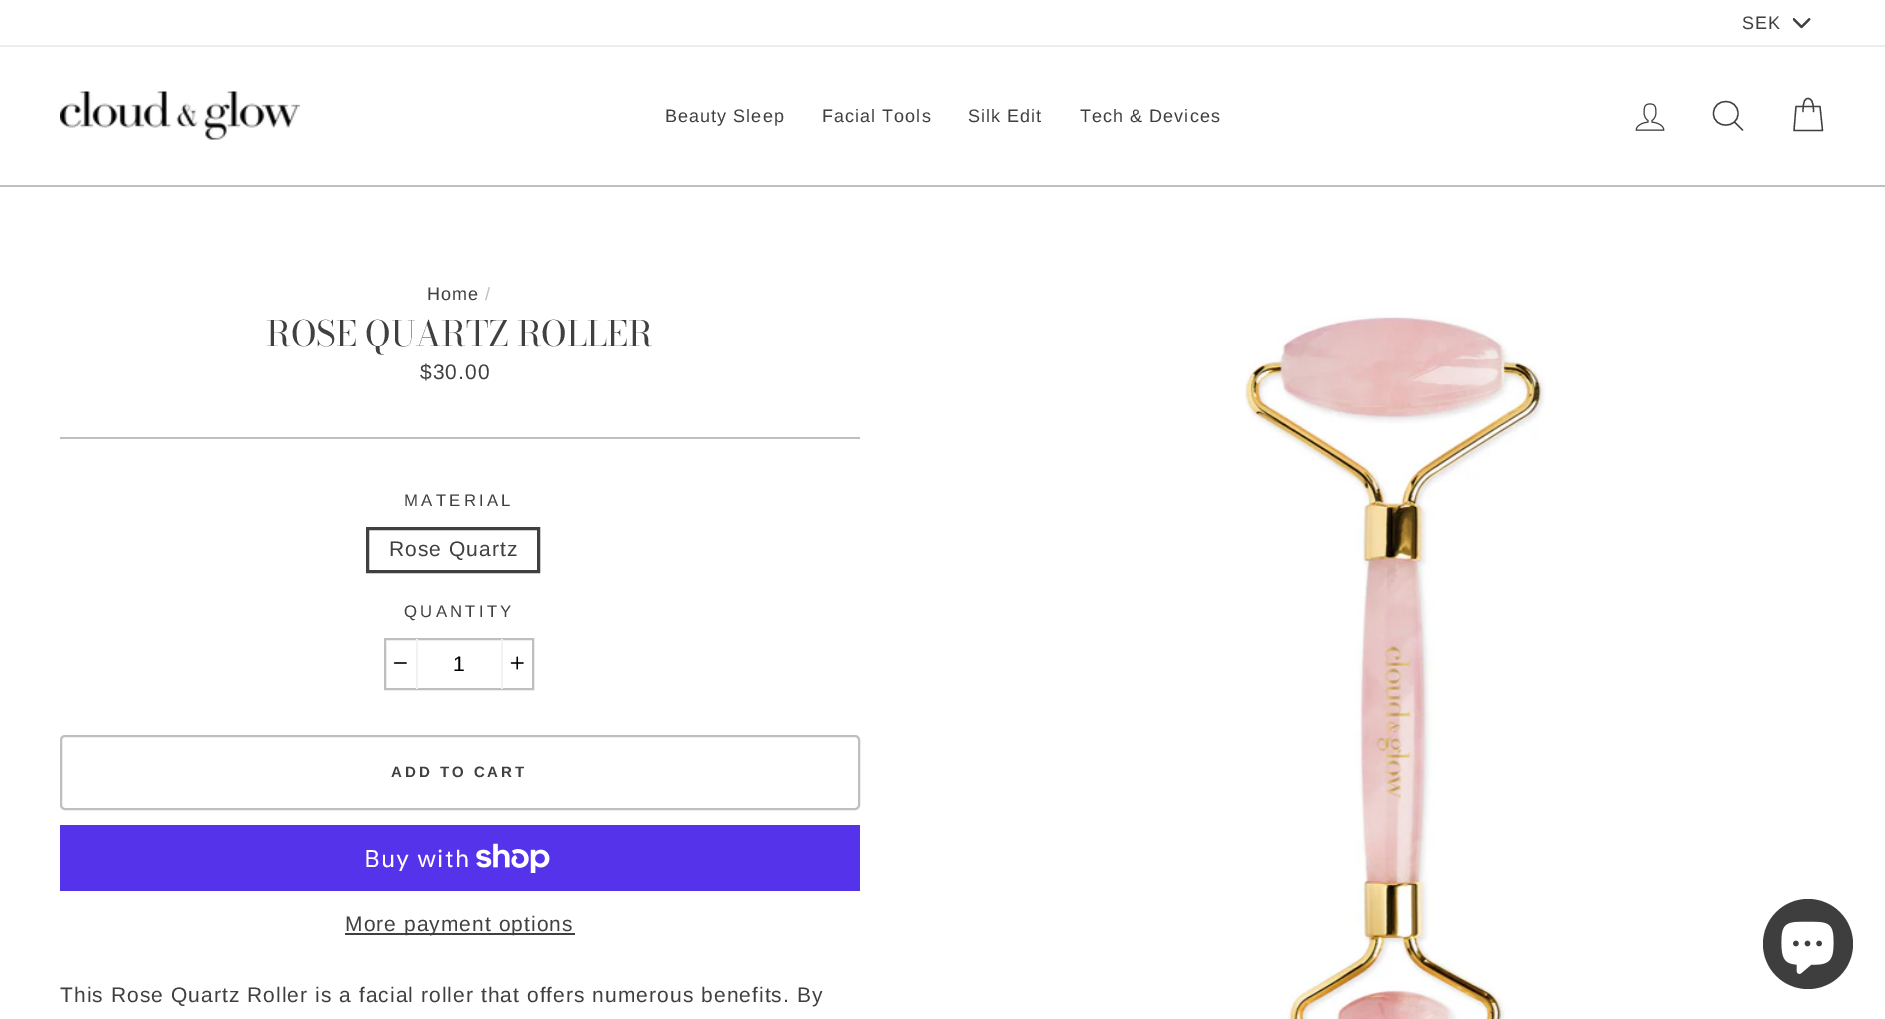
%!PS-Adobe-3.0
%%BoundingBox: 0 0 1885 1019
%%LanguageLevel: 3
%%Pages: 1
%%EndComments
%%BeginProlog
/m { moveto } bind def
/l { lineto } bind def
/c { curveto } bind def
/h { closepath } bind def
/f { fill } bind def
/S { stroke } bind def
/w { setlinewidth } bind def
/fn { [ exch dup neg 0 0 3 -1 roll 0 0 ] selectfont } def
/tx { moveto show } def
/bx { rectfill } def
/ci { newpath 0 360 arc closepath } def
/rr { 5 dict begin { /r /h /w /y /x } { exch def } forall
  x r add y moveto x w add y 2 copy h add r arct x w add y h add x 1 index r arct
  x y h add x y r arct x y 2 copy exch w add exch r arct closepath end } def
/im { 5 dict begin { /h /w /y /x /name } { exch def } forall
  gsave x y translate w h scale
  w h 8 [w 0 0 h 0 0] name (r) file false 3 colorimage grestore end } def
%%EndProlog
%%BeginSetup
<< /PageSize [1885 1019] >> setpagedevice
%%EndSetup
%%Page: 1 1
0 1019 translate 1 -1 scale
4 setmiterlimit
1 setgray
0 0 1885 1019 bx
(image0.raw) 1793 18 18 11 im
/LiberationSans-Regular 18 fn
0.251 setgray
1742 29 m 1 0 (SEK) ashow
0.925 setgray
0 45 1885 2 bx
0.749 setgray
0 185 1885 2 bx
(image1.raw) 60 91 240 49 im
0.251 setgray
665 122 m 1.05 0 (Beauty Sleep) ashow
822 122 m 1.05 0 (Facial Tools) ashow
968 122 m 1.05 0 (Silk Edit) ashow
1080 122 m 1.05 0 (Tech & Devices) ashow
(image2.raw) 1635 103 30 28 im
1.3 w
1 setlinecap
1 setlinejoin
1738 113.5 m 1738 129 1713.5 129 1713.5 113.5 c 1713.5 97.5 1738 97.5 1738 113.5 c h 1742.5 130 m 1734.5 122 l S
1803 111.5 m 1803 101 1805 98.5 1808 98.5 c 1811 98.5 1813.5 101 1813.5 111.5 c 1796 106.5 m 1820 106.5 l 1822.5 130.5 l 1794 130.5 l h S
427 300 m 1.05 0 (Home) ashow
0.749 setgray
485 300 m 1.05 0 (/) ashow
/BodoniModa-Regular 34.75 fn
0.251 setgray
(ROSE QUARTZ ROLLER) 266 346 tx
/LiberationSans-Regular 21 fn
420 379 m 1.05 0 ($30.00) ashow
0.749 setgray
60 437 800 2 bx
/LiberationSans-Regular 16.75 fn
0.251 setgray
404 506 m 3.25 0 (MATERIAL) ashow
3 w
0 setlinecap
0 setlinejoin
367.5 528.5 171 43 rectstroke
/LiberationSans-Regular 21 fn
389 556 m 1.05 0 (Rose Quartz) ashow
/LiberationSans-Regular 16.75 fn
404 617 m 3.25 0 (QUANTITY) ashow
0.749 setgray
2 w
385 639 148 50 rectstroke
0.949 setgray
416 639 2 50 bx
(image3.raw) 393 662 14 2 im
/LiberationSans-Regular 21 fn
0 setgray
453 671 m 1.05 0 (1) ashow
0.949 setgray
501 639 2 50 bx
(image4.raw) 510 656 14 14 im
0.749 setgray
61 736 798 73 4 rr S
/LiberationSans-Bold 15 fn
0.251 setgray
391 777 m 3 0 (ADD TO CART) ashow
0.329 0.2 0.922 setrgbcolor
60 825 800 66 bx
/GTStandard-Regular 24 fn
1 setgray
364 867 m 1.05 0 (Buy with) ashow
(image5.raw) 476 843 74 30 im
0.251 setgray
345 933 230 2 bx
/LiberationSans-Regular 21 fn
345 931 m 1.05 0 (More payment options) ashow
60 1002 m 1.05 0 (This Rose Quartz Roller is a facial roller that offers numerous benefits. By) ashow
(image6.raw) 1245 316 301 703 im
0.243 setgray
1808 944 45 ci f
(image7.raw) 1781 921 53 53 im
showpage
%%EOF
